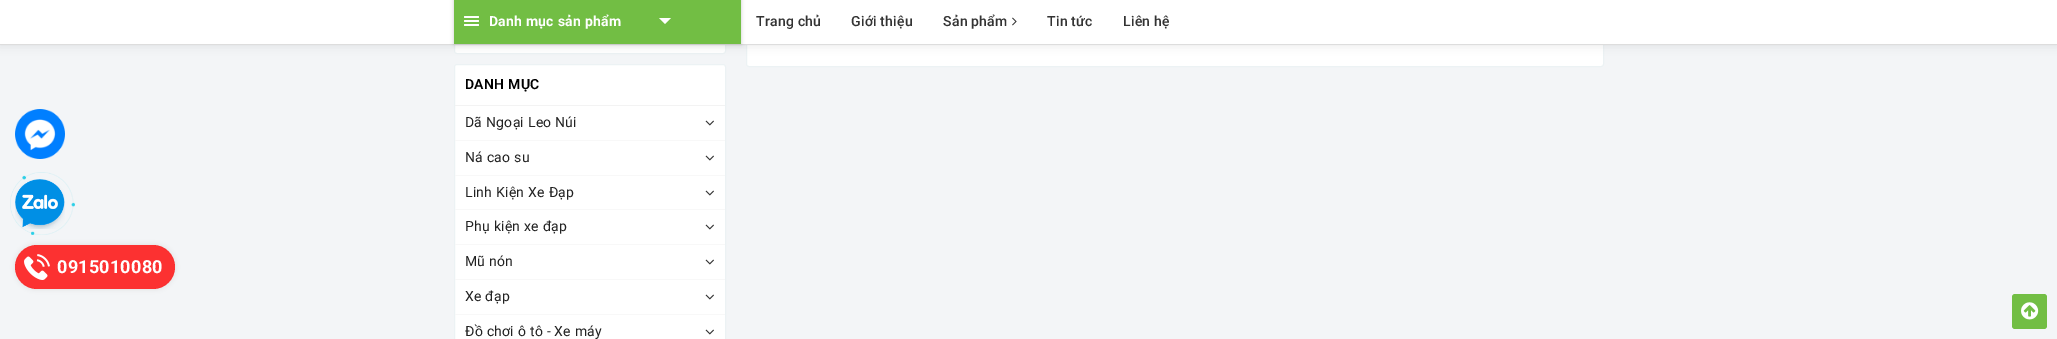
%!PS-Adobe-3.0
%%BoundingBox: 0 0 2057 339
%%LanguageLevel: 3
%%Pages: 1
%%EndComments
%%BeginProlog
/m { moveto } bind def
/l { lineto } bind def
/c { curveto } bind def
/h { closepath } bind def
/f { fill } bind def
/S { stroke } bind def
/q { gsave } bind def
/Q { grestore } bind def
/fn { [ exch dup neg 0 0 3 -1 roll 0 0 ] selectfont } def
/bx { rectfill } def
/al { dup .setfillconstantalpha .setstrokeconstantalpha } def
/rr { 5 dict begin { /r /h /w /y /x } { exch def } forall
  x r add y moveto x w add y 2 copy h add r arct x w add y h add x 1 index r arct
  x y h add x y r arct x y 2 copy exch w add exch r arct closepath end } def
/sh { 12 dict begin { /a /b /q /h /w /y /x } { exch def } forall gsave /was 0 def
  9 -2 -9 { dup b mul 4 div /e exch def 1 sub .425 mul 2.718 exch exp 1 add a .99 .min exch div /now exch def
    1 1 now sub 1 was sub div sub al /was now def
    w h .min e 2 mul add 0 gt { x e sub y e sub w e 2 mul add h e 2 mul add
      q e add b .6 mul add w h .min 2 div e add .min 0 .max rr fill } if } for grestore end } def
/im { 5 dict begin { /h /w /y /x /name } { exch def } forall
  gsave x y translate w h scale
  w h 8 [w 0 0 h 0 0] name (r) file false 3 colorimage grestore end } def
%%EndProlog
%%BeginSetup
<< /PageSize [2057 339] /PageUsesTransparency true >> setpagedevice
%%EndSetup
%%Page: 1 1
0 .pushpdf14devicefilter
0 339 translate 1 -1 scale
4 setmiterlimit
0.953 0.961 0.969 setrgbcolor
0 0 2057 339 bx
1 setgray
746.5 -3.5 857 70 2.5 rr q f Q
0.925 0.949 0.957 setrgbcolor
S
1 setgray
454.5 -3.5 271 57 2.5 rr q f Q
0.925 0.949 0.957 setrgbcolor
S
0 setgray
0 0 2057 45 0 5 0.1 sh
1 setgray
0 0 2057 44 bx
0.867 setgray
0 44 2057 1 bx
0 setgray
454 0 287 44 0 2 0.2 sh
0.447 0.745 0.267 setrgbcolor
454 0 287 44 bx
1 setgray
464 16 15 2 1 rr f
464 20 15 2 1 rr f
464 24 15 2 1 rr f
/Roboto-Bold 14 fn
489 26 m 0.25 0 (Danh mục sản phẩm) ashow
659 18 m 671 18 l 665 24 l h f
/Roboto-Medium 14 fn
0.2 setgray
756 26 m 0.25 0 (Trang chủ) ashow
851 26 m 0.25 0 (Giới thiệu) ashow
943 26 m 0.25 0 (Sản phẩm) ashow
(image0.raw) 1012 17 5 9 im
1047 26 m 0.25 0 (Tin tức) ashow
1123 26 m 0.25 0 (Liên hệ) ashow
(image1.raw) 15 109 50 50 im
1 setgray
454.5 64.5 271 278 2.5 rr q f Q
0.925 0.949 0.957 setrgbcolor
S
0.953 setgray
455 105 270 1 bx
/Roboto-SemiBold 14 fn
0 setgray
465 89 m 0.25 0 (DANH MỤC) ashow
0.973 setgray
455 140 270 1 bx
/Roboto-Regular 14 fn
0.133 setgray
465 127 m 0.25 0 (Dã Ngoại Leo Núi) ashow
(image2.raw) 705 120 9 6 im
0.973 setgray
455 175 270 1 bx
0.133 setgray
465 162 m 0.25 0 (Ná cao su) ashow
(image2.raw) 705 155 9 6 im
0.973 setgray
455 209 270 1 bx
0.133 setgray
465 197 m 0.25 0 (Linh Kiện Xe Đạp) ashow
(image2.raw) 705 190 9 6 im
0.973 setgray
455 244 270 1 bx
0.133 setgray
465 231 m 0.25 0 (Phụ kiện xe đạp) ashow
(image2.raw) 705 224 9 6 im
0.973 setgray
455 279 270 1 bx
0.133 setgray
465 266 m 0.25 0 (Mũ nón) ashow
(image2.raw) 705 259 9 6 im
0.973 setgray
455 314 270 1 bx
0.133 setgray
465 301 m 0.25 0 (Xe đạp) ashow
(image2.raw) 705 294 9 6 im
465 336 m 0.25 0 (Đồ chơi ô tô - Xe máy) ashow
(image2.raw) 705 329 9 6 im
(image3.raw) 10 172 65 63 im
(image4.raw) 15 179 50 50 im
q
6 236 m 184 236 l 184 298 l 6 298 l h 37 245 m 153 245 l 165 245 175 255 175 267 c 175 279 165 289 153 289 c 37 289 l 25 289 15 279 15 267 c 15 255 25 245 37 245 c h eoclip newpath
0.867 setgray
15 245 160 44 22 2.5 1 sh
Q
0.8 al
0.996 0 0 setrgbcolor
15 245 160 44 22 rr f
1 al
(image5.raw) 24 254 26 26 im
/Roboto-Bold 18 fn
1 setgray
57 273 m 0.25 0 (0915010080) ashow
0.447 0.745 0.267 setrgbcolor
2012 294 35 35 3 rr f
(image6.raw) 2021 302 18 18 im
.poppdf14devicefilter showpage
%%EOF
